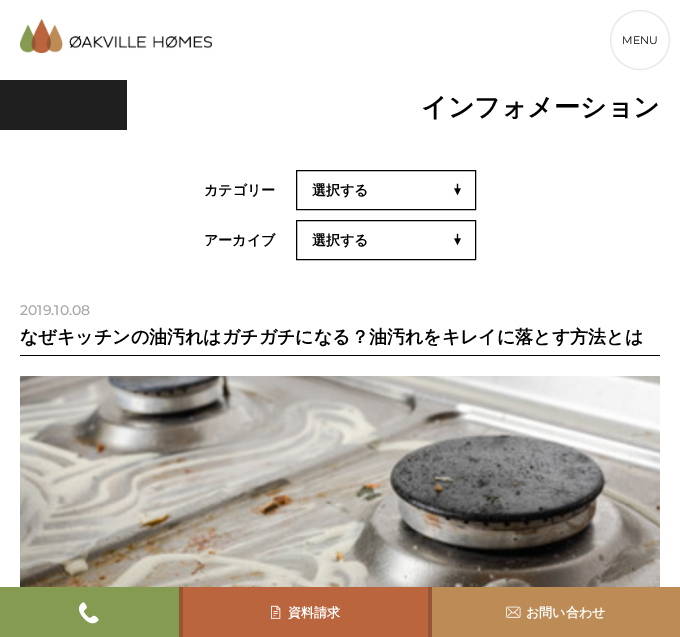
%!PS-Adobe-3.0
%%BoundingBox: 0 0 680 637
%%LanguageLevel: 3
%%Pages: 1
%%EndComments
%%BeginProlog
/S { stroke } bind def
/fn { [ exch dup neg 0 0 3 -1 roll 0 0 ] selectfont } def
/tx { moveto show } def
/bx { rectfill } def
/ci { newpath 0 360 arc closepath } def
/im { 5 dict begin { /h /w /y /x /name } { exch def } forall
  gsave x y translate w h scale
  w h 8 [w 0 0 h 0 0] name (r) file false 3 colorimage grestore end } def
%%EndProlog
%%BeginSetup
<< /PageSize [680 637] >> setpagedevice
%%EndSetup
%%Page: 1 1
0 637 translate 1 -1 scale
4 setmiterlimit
1 setgray
0 0 680 637 bx
(image0.raw) 20 19 192 34 im
0.902 setgray
640 40 29.5 ci S
/Montserrat-Regular 11 fn
0 setgray
(MENU) 622 44 tx
0.522 0.608 0.318 setrgbcolor
0 587 179 50 bx
0.58 0.337 0.208 setrgbcolor
179 587 4 50 bx
(image1.raw) 78 602 21 22 im
0.733 0.396 0.243 setrgbcolor
183 587 245 50 bx
(image2.raw) 271 605 10 14 im
/WenQuanYiZenHei-Bold 13 fn
1 setgray
(資料請求) 288 617 tx
0.58 0.337 0.208 setrgbcolor
428 587 4 50 bx
0.741 0.545 0.337 setrgbcolor
432 587 248 50 bx
(image3.raw) 506 606 15 12 im
1 setgray
(お問い合わせ) 526 617 tx
0.122 setgray
0 80 127 50 bx
/WenQuanYiZenHei-Bold 26 fn
0 setgray
(インフォメーション) 421 116 tx
/WenQuanYiZenHei-Bold 14 fn
(カテゴリー) 204 195 tx
296.5 170.5 179 39 rectstroke
(選択する) 312 195 tx
(image4.raw) 454 183 7 13 im
(アーカイブ) 204 245 tx
296.5 220.5 179 39 rectstroke
(選択する) 312 245 tx
(image4.raw) 454 233 7 13 im
/Montserrat-Medium 14 fn
0.655 setgray
(2019.10.08) 20 315 tx
0 setgray
20 355 640 1 bx
/WenQuanYiZenHei-Bold 18 fn
(なぜキッチンの油汚れはガチガチになる？油汚れをキレイに落とす方法とは) 20 343 tx
(image5.raw) 20 376 640 211 im
showpage
%%EOF
